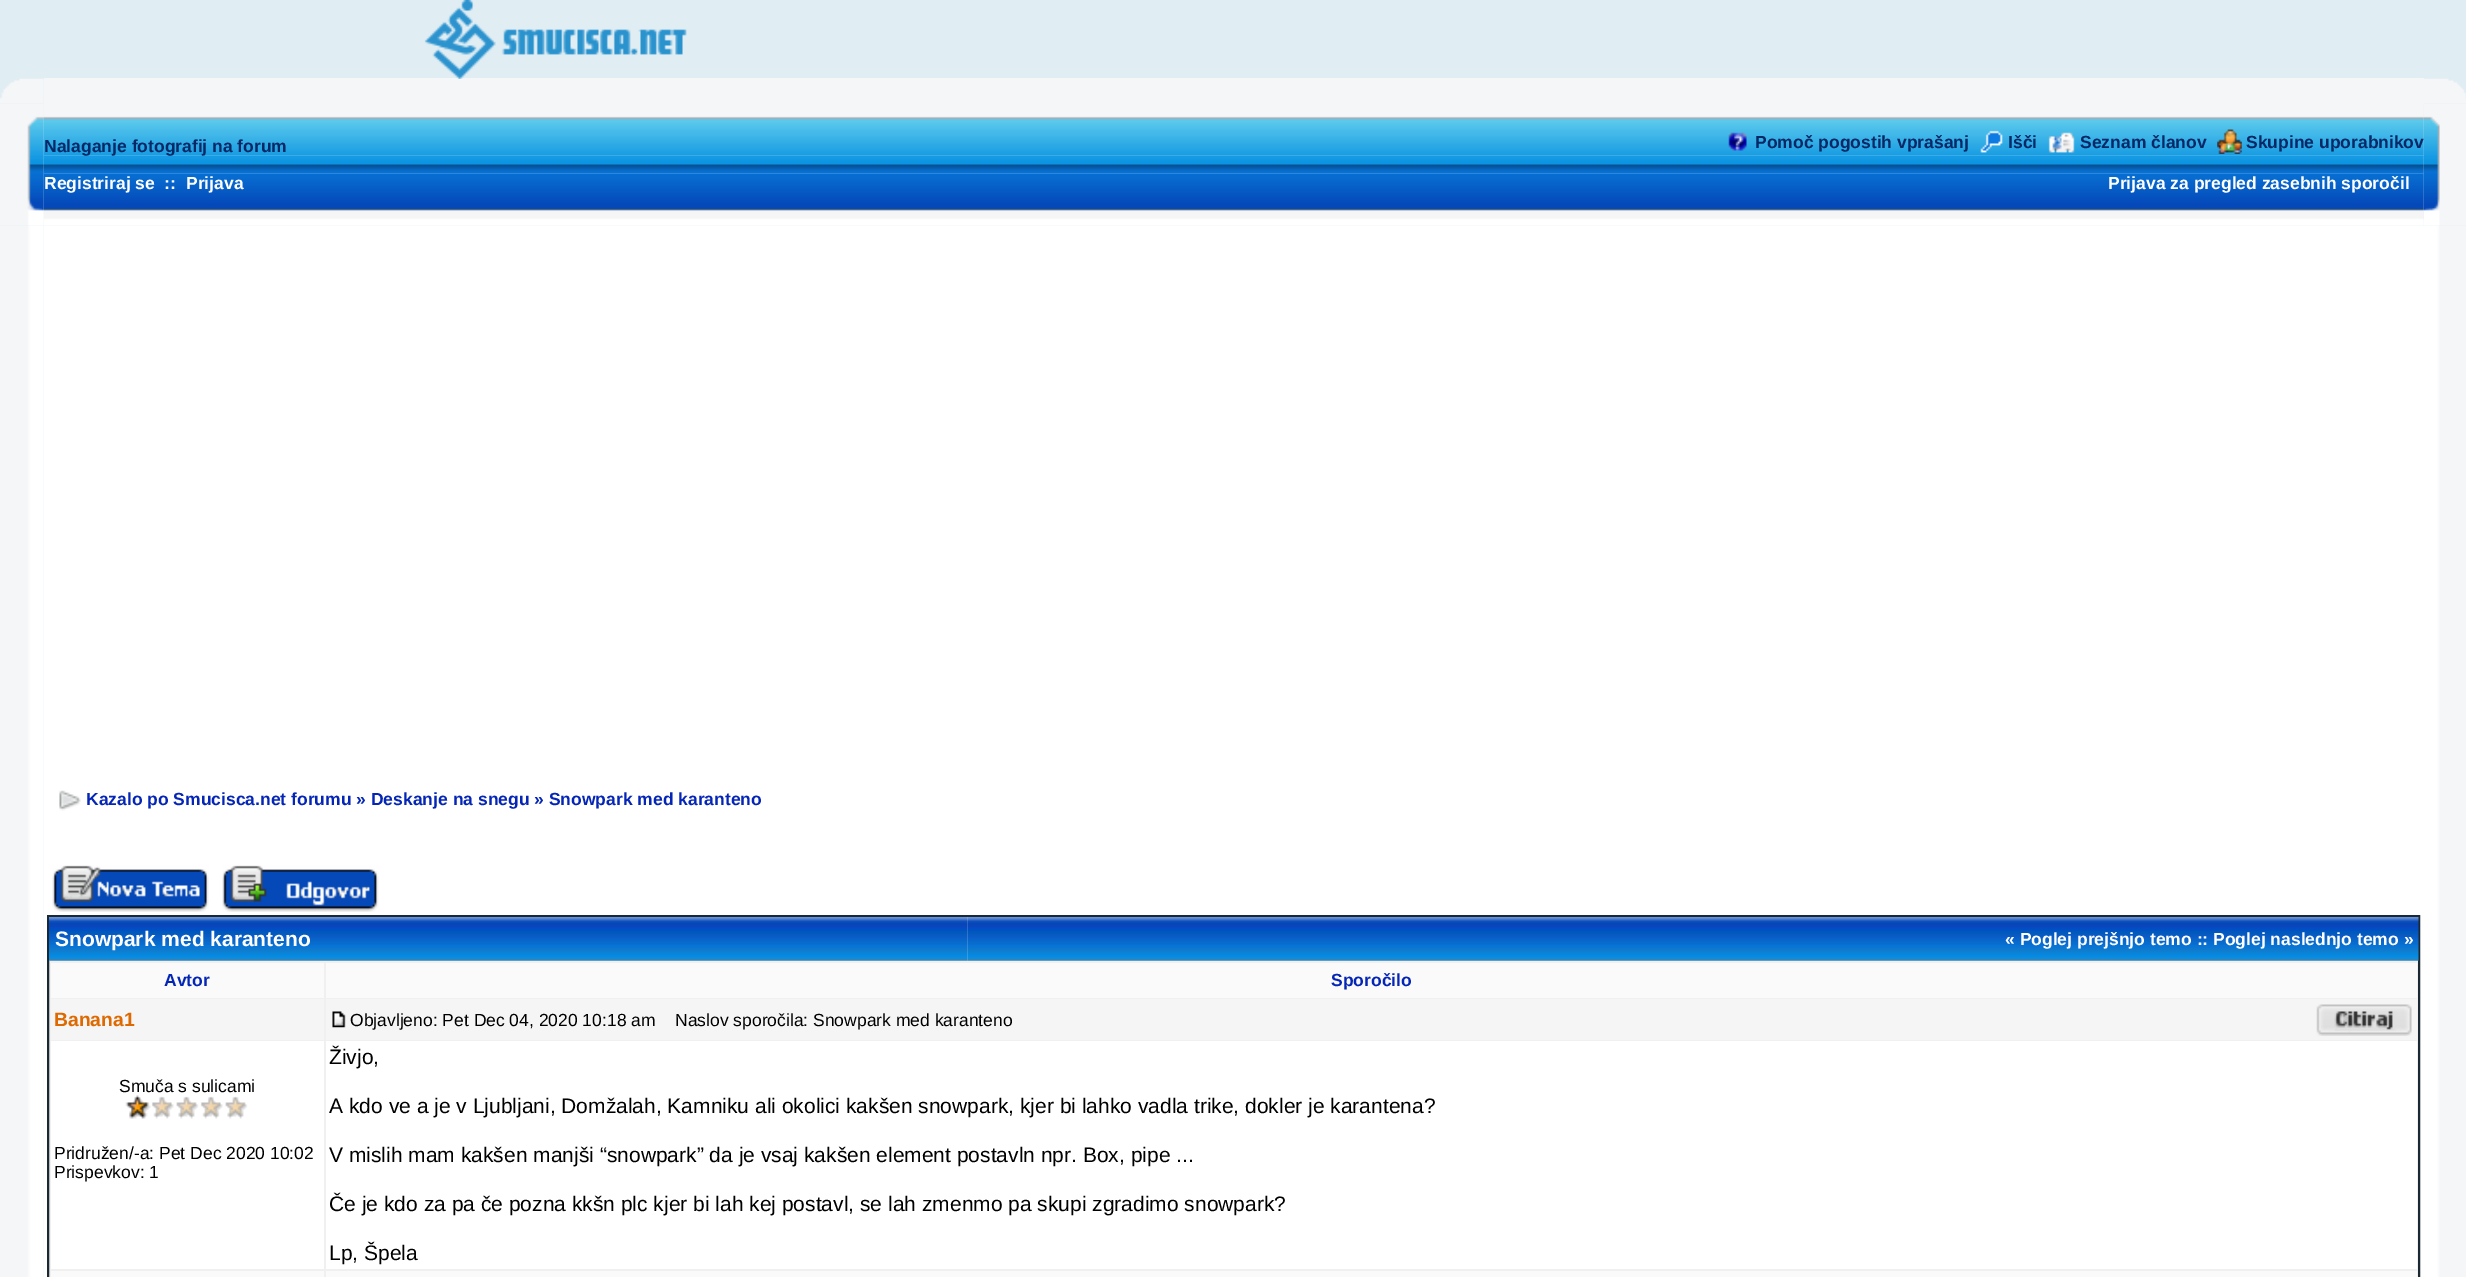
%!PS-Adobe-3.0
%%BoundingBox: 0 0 2466 1277
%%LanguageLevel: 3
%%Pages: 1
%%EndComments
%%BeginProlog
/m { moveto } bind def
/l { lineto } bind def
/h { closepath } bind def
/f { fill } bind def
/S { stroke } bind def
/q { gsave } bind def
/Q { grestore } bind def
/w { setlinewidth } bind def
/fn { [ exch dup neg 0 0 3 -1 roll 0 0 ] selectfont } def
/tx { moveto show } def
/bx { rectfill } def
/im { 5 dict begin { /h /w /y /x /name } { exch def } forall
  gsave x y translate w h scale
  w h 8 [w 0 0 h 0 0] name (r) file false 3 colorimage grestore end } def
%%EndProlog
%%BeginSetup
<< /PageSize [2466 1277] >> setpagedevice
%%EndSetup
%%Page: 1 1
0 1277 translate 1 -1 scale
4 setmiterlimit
0.878 0.929 0.953 setrgbcolor
0 0 2466 1277 bx
0.961 0.965 0.973 setrgbcolor
44 78 2380 26 bx
(image0.raw) 424 0 263 79 im
(image1.raw) 0 78 44 26 im
(image2.raw) 2424 78 42 26 im
(image3.raw) 0 103 44 123 im
(image4.raw) 43 104 615 52 im
(image5.raw) 658 104 1766 52 im
(image10.raw) 2423 103 43 123 im
(image11.raw) 43 155 2381 19 im
/LiberationSans-Bold 17.5 fn
0.012 0.157 0.4 setrgbcolor
(Nalaganje fotografij na forum) 44 152 tx
(image6.raw) 1728 132 19 19 im
(Pomoč pogostih vprašanj) 1755 148 tx
(image7.raw) 1980 130 23 23 im
(Išči) 2008 148 tx
(image8.raw) 2048 132 27 21 im
(Seznam članov) 2080 148 tx
(image9.raw) 2217 129 25 25 im
(Skupine uporabnikov) 2246 148 tx
(image12.raw) 43 173 615 53 im
1 setgray
(Registriraj se) 44 189 tx
(::) 164 189 tx
(Prijava) 186 189 tx
(image13.raw) 658 173 1766 53 im
(Prijava za pregled zasebnih sporočil) 2108 189 tx
(image14.raw) 0 226 44 1051 im
44 226 2380 1051 bx
(image15.raw) 59 790 22 21 im
0.016 0.145 0.714 setrgbcolor
(Kazalo po Smucisca.net forumu » Deskanje na snegu » Snowpark med karanteno) 86 805 tx
(image16.raw) 52 865 157 47 im
(image17.raw) 222 865 157 47 im
0.941 setgray
48 916 m 2419 916 l 2419 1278 l 48 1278 l h q f Q
0.098 0.157 0.196 setrgbcolor
2 w
S
(image18.raw) 49 917 919 44 im
/LiberationSans-Bold 21 fn
1 setgray
(Snowpark med karanteno) 55 946 tx
(image19.raw) 967 917 1452 44 im
/LiberationSans-Bold 17.5 fn
(« Poglej prejšnjo temo :: Poglej naslednjo temo ») 2005 945 tx
0.98 setgray
51 963 273 35 bx
0.016 0.145 0.714 setrgbcolor
(Avtor) 164 986 tx
0.98 setgray
326 963 2091 35 bx
0.016 0.145 0.714 setrgbcolor
(Sporočilo) 1331 986 tx
0.961 setgray
51 999 273 41 bx
/LiberationSans-Bold 19.25 fn
0.867 0.412 0 setrgbcolor
(Banana1) 54 1026 tx
0.961 setgray
326 999 2091 41 bx
(image20.raw) 332 1011 14 17 im
/LiberationSans-Regular 17.5 fn
0 setgray
(Objavljeno: Pet Dec 04, 2020 10:18 am) 350 1026 tx
(Naslov sporočila: Snowpark med karanteno) 675 1026 tx
(image21.raw) 2316 1004 96 32 im
1 setgray
51 1041 273 228 bx
0 setgray
(Smuča s sulicami) 119 1092 tx
(image22.raw) 125 1095 123 24 im
(Pridružen/-a: Pet Dec 2020 10:02) 54 1159 tx
(Prispevkov: 1) 54 1178 tx
1 setgray
326 1041 2091 228 bx
/LiberationSans-Regular 21 fn
0 setgray
(Živjo,) 329 1064 tx
(A kdo ve a je v Ljubljani, Domžalah, Kamniku ali okolici kakšen snowpark, kjer bi lahko vadla trike, dokler je karantena?) 329 1113 tx
(V mislih mam kakšen manjši “snowpark” da je vsaj kakšen element postavln npr. Box, pipe ...) 329 1162 tx
(Če je kdo za pa če pozna kkšn plc kjer bi lah kej postavl, se lah zmenmo pa skupi zgradimo snowpark?) 329 1211 tx
(Lp, Špela) 329 1260 tx
0.98 setgray
51 1271 273 6 bx
326 1271 2091 6 bx
(image23.raw) 2424 226 42 1051 im
showpage
%%EOF
